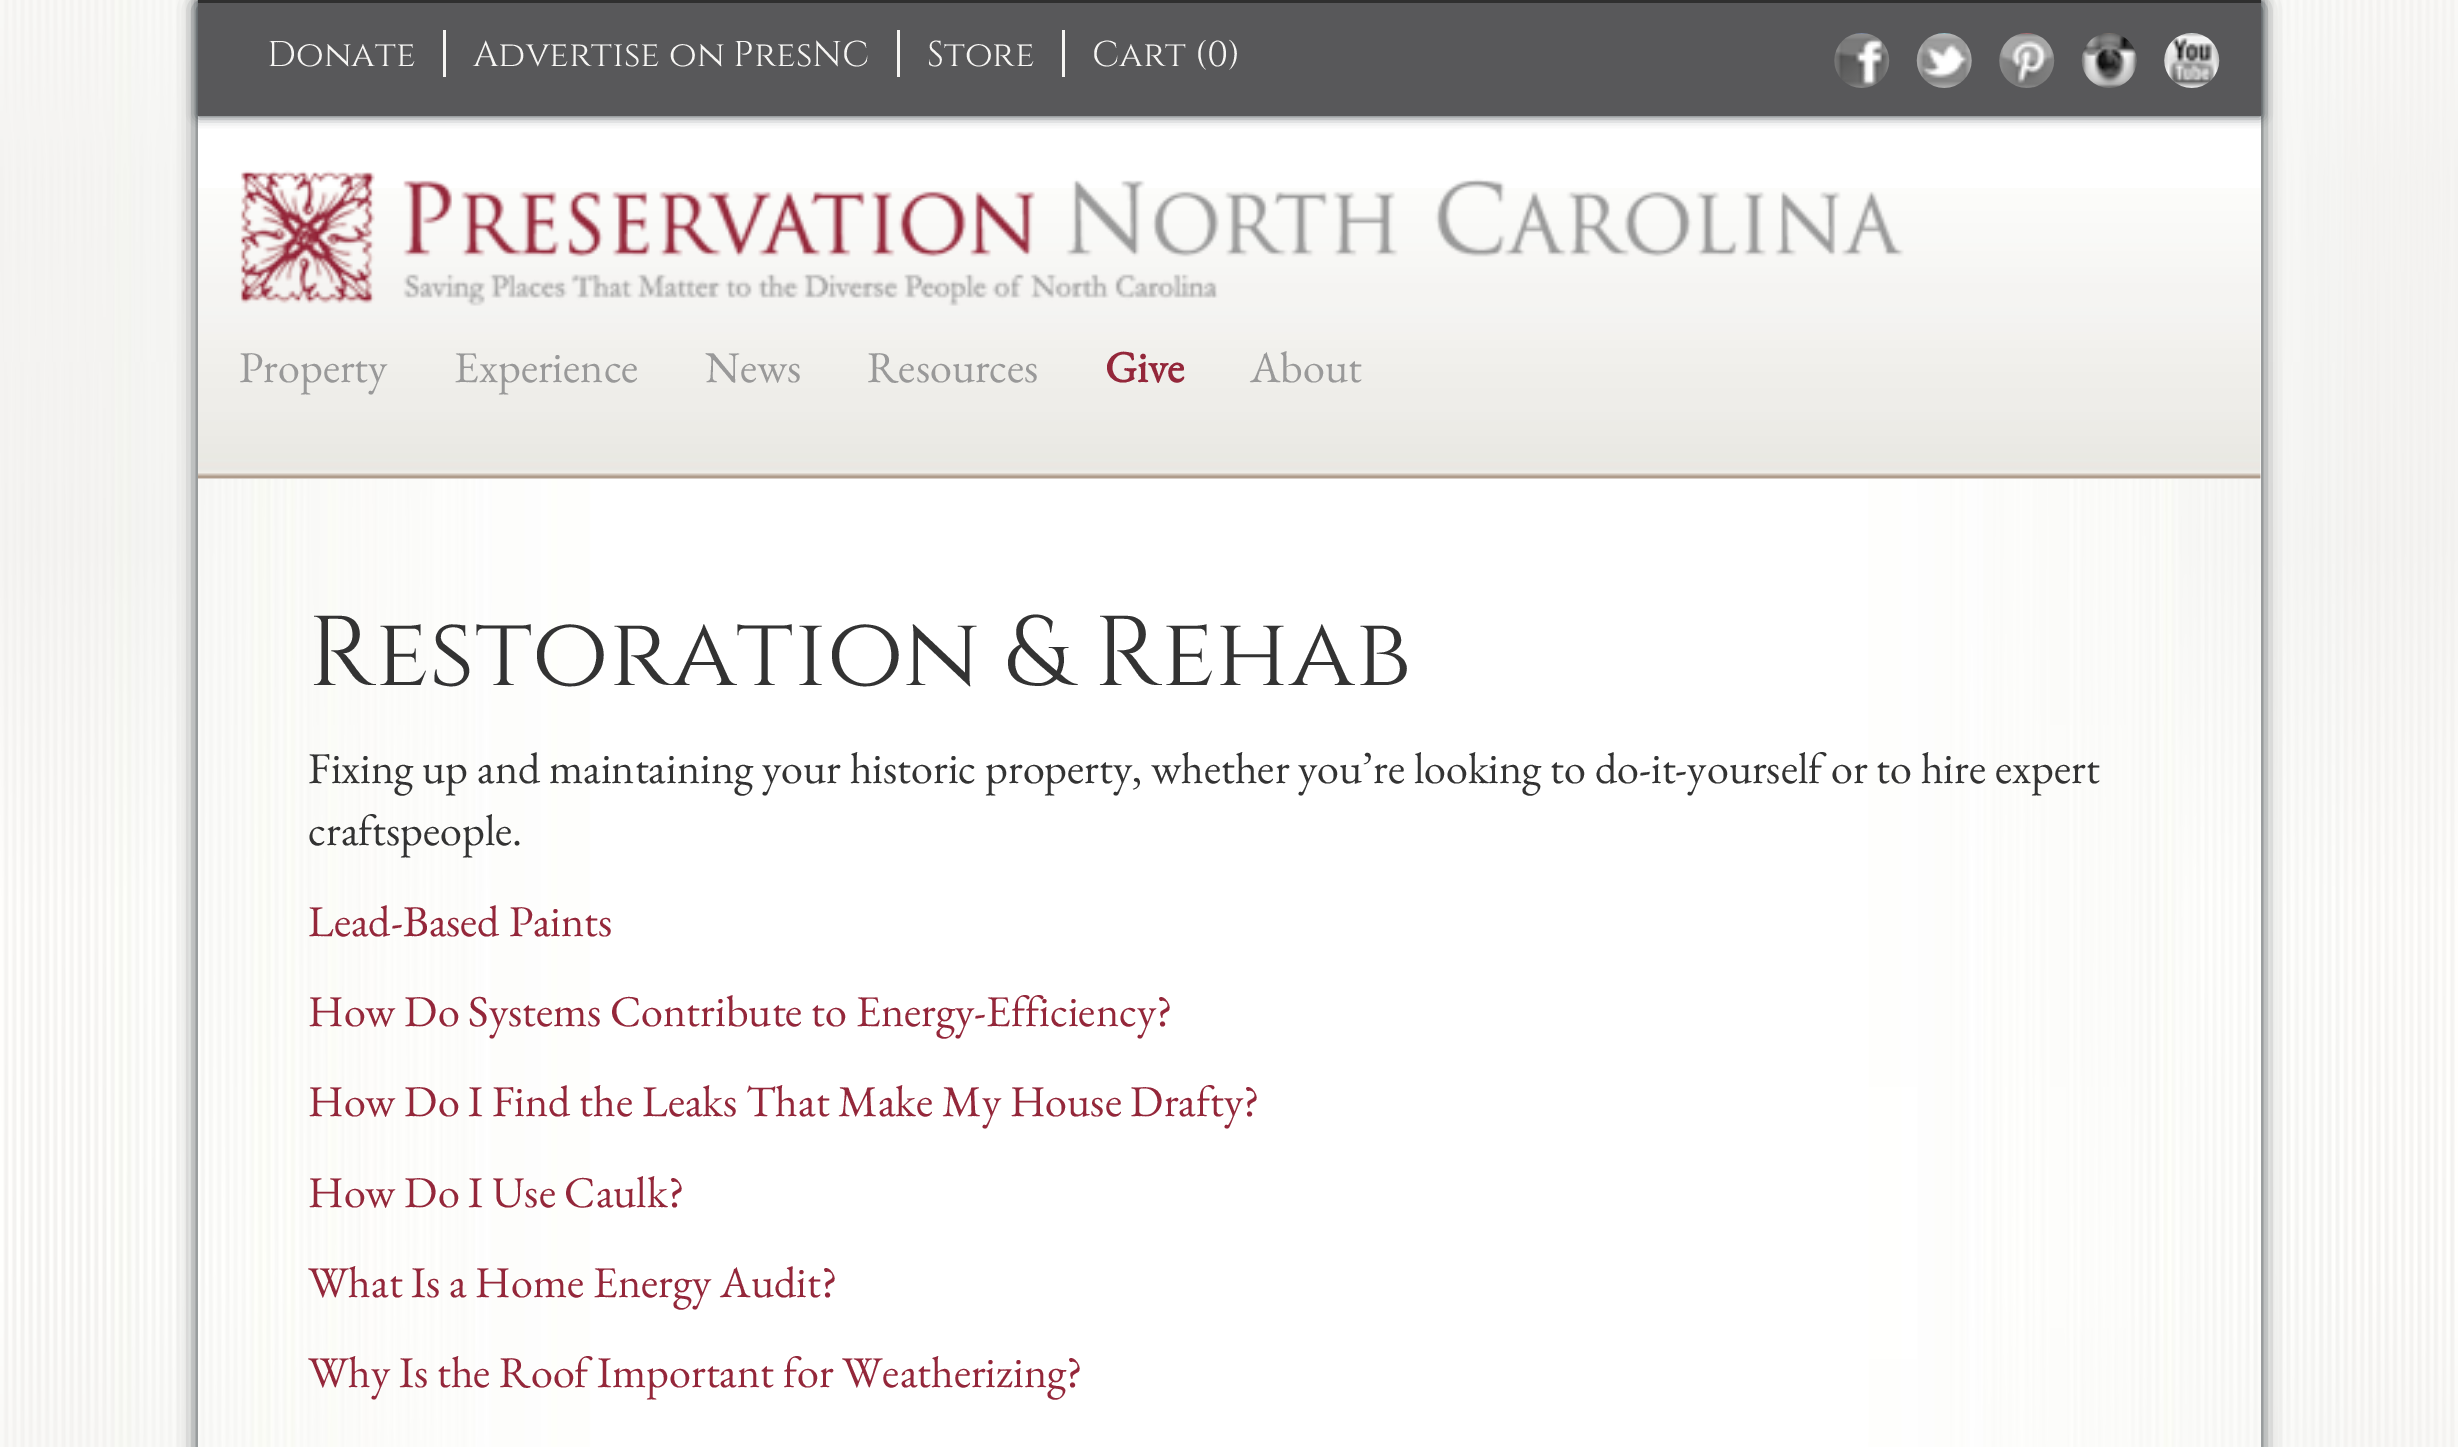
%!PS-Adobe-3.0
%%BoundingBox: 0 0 2458 1447
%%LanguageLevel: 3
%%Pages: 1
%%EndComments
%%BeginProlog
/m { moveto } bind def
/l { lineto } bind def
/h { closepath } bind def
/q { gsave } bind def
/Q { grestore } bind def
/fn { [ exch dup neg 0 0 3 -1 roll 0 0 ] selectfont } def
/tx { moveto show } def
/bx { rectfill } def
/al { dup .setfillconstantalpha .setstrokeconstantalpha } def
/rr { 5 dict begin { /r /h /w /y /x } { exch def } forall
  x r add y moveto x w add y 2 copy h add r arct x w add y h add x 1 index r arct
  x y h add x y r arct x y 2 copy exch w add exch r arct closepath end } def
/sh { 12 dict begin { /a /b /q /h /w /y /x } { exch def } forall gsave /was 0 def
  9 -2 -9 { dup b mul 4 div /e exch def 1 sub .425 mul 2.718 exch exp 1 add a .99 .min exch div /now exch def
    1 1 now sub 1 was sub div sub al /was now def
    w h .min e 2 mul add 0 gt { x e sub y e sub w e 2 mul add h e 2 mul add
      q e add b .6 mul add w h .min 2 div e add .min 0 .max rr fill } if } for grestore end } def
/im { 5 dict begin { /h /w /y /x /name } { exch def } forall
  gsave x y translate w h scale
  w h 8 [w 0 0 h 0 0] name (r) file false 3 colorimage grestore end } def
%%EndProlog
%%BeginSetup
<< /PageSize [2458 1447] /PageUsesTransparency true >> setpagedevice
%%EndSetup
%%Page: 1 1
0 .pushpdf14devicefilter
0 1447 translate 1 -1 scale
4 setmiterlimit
1 setgray
0 0 2458 1447 bx
(image0.raw) 0 0 2458 1447 im
q
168 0 m 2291 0 l 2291 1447 l 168 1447 l h 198 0 m 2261 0 l 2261 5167 l 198 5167 l h eoclip newpath
0.212 0.243 0.259 setrgbcolor
198 6 2063 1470 0 9.5 1 sh
Q
198 116 2063 363 bx
0.212 0.243 0.259 setrgbcolor
198 0 2063 116 0 5.5 1 sh
0.345 0.345 0.353 setrgbcolor
198 3 2063 113 bx
0.184 setgray
198 0 2063 3 bx
0.965 0.961 0.953 setrgbcolor
443 30 3 47 bx
/Cinzel-Regular 35.75 fn
(Donate) 267 66 tx
897 30 3 47 bx
(Advertise on PresNC) 473 66 tx
1062 30 3 47 bx
(Store) 927 66 tx
(Cart \(0\)) 1092 66 tx
(image1.raw) 1834 33 56 55 im
(image2.raw) 1916 33 56 55 im
(image3.raw) 1999 33 56 55 im
(image4.raw) 2081 33 56 55 im
(image5.raw) 2164 33 56 55 im
(image6.raw) 198 188 2063 291 im
(image7.raw) 239 170 1665 136 im
/EBGaramond-Regular 44 fn
0.6 setgray
(Property) 239 382 tx
(Experience) 454 382 tx
(News) 705 382 tx
(Resources) 867 382 tx
/EBGaramond-Bold 44 fn
0.58 0.153 0.227 setrgbcolor
(Give) 1105 382 tx
/EBGaramond-Regular 44 fn
0.6 setgray
(About) 1250 382 tx
/Cinzel-Regular 99 fn
0.2 setgray
(Restoration & Rehab) 308 685 tx
/EBGaramond-Regular 44 fn
(Fixing up and maintaining your historic property, whether you’re looking to do-it-yourself or to hire expert) 308 783 tx
(craftspeople.) 308 845 tx
0.58 0.153 0.227 setrgbcolor
(Lead-Based Paints) 308 936 tx
(How Do Systems Contribute to Energy-Efficiency?) 308 1026 tx
(How Do I Find the Leaks That Make My House Drafty?) 308 1116 tx
(How Do I Use Caulk?) 308 1207 tx
(What Is a Home Energy Audit?) 308 1297 tx
(Why Is the Roof Important for Weatherizing?) 308 1387 tx
.poppdf14devicefilter showpage
%%EOF
